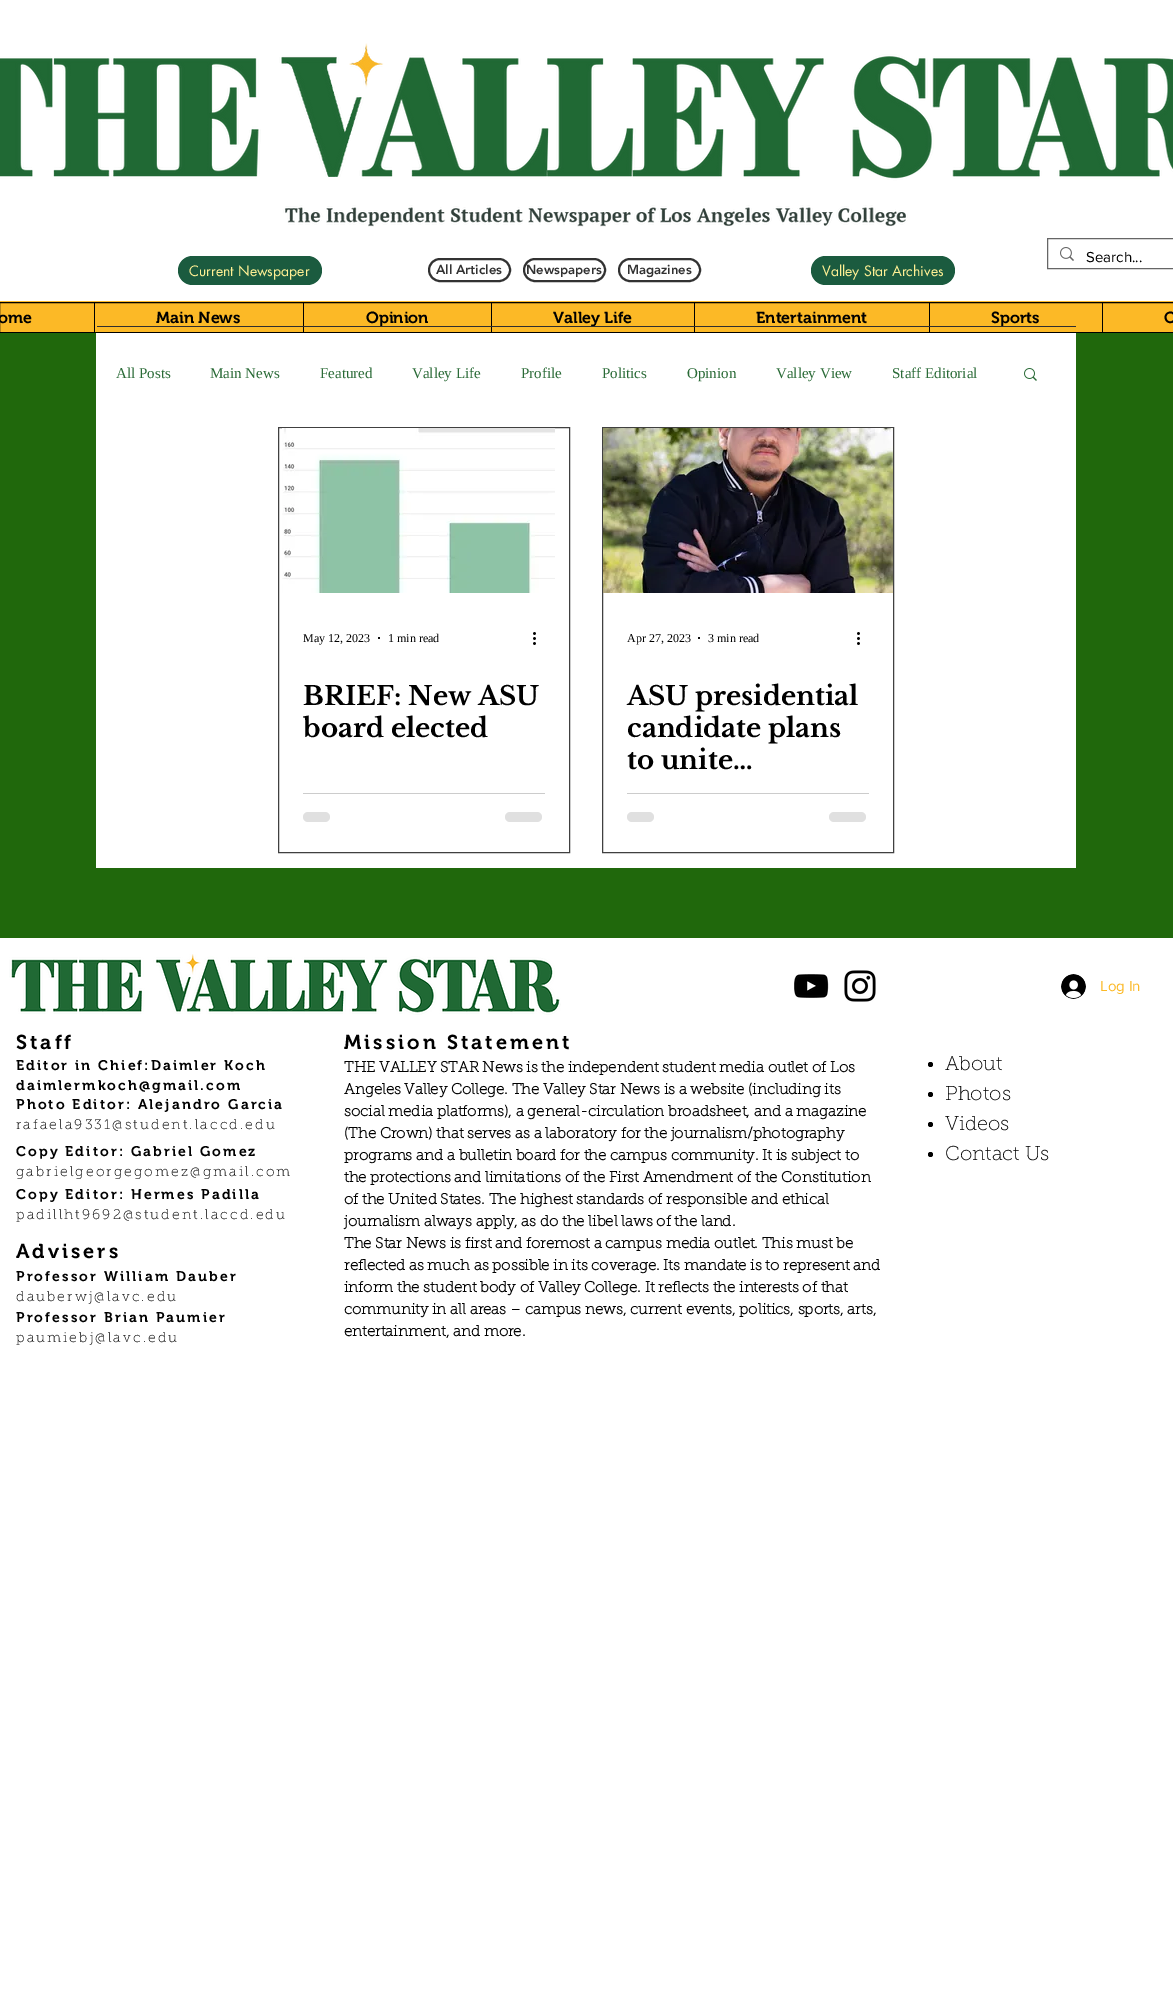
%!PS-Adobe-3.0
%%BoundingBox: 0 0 1173 2010
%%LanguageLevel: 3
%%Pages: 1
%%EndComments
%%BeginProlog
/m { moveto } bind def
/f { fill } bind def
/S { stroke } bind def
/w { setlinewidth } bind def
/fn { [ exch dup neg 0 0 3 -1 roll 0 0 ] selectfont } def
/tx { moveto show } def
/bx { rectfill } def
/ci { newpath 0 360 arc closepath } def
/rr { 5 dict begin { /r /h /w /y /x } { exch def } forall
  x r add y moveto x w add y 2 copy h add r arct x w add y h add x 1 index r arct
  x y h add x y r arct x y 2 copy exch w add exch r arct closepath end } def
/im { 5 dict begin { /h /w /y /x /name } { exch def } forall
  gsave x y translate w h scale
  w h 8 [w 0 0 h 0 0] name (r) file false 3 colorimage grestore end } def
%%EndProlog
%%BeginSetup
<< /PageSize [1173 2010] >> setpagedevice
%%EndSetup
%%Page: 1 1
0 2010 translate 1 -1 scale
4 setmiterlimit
1 setgray
0 0 1173 2010 bx
(image0.raw) 0 43 1173 184 im
0.4 setgray
1047.5 238.5 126 30 rectstroke
(image1.raw) 1060 247 14 14 im
/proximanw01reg-Regular 15 fn
0 setgray
(Search...) 1086 262 tx
0.106 0.357 0.247 setrgbcolor
178 256 144 29 14.5 rr f
/futura-Regular 14 fn
1 0.941 0.58 setrgbcolor
(Current Newspaper) 189 276 tx
0.196 setgray
2 w
429 259 81 22 11 rr S
/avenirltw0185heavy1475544-Black 13 fn
(All Articles) 436 274 tx
524 259 81 22 11 rr S
(Newspapers) 526 274 tx
619 259 81 22 11 rr S
(Magazines) 627 274 tx
0.106 0.357 0.247 setrgbcolor
811 256 144 29 14.5 rr f
/futura-Regular 14 fn
1 0.941 0.58 setrgbcolor
(Valley Star Archives) 822 276 tx
0.988 0.725 0.149 setrgbcolor
0 301 1173 31 bx
0 setgray
1 w
-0.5 302.5 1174 30 rectstroke
/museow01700-SemiBold 16 fn
(ome) -2 323 tx
94 303 1 29 bx
(Main News) 156 323 tx
303 303 1 29 bx
(Opinion) 366 323 tx
491 303 1 29 bx
(Valley Life) 553 323 tx
694 303 1 29 bx
(Entertainment) 756 323 tx
929 303 1 29 bx
(Sports) 991 323 tx
1102 303 1 29 bx
(O) 1164 323 tx
0.125 0.408 0.047 setrgbcolor
0 333 1173 605 bx
0.184 0.18 0.18 setrgbcolor
97 326 979 1 bx
1 setgray
96 333 980 535 bx
/LiberationSerif-Regular 15 fn
0.165 0.42 0.216 setrgbcolor
(All Posts) 116 378 tx
(Main News) 210 378 tx
(Featured) 320 378 tx
(Valley Life) 412 378 tx
(Profile) 521 378 tx
(Politics) 602 378 tx
(Opinion) 687 378 tx
(Valley View) 776 378 tx
(Staff Editorial) 892 378 tx
(image2.raw) 1024 368 13 13 im
0.251 setgray
278.5 427.5 291 425 rectstroke
(image3.raw) 282 428 273 165 im
/LiberationSerif-Regular 12 fn
0 setgray
(May 12, 2023) 303 642 tx
379 638 1 ci f
(1 min read) 388 642 tx
(image4.raw) 533 632 3 13 im
/LibreBaskerville-Bold 26 fn
(BRIEF: New ASU) 303 705 tx
(board elected) 303 737 tx
0.8 setgray
303 793 242 1 bx
0.878 setgray
303 812 27 10 5 rr f
505 812 37 10 5 rr f
0.251 setgray
602.5 427.5 291 425 rectstroke
(image5.raw) 603 428 290 165 im
/LiberationSerif-Regular 12 fn
0 setgray
(Apr 27, 2023) 627 642 tx
699 638 1 ci f
(3 min read) 708 642 tx
(image4.raw) 857 632 3 13 im
/LibreBaskerville-Bold 26 fn
(ASU presidential) 627 705 tx
(candidate plans) 627 737 tx
(to unite…) 627 769 tx
0.8 setgray
627 793 242 1 bx
0.878 setgray
627 812 27 10 5 rr f
829 812 37 10 5 rr f
(image6.raw) 9 954 552 61 im
(image7.raw) 794 974 35 24 im
(image8.raw) 844 970 32 32 im
(image9.raw) 1061 974 25 25 im
/proximanw01reg-Regular 15 fn
0.988 0.725 0.149 setrgbcolor
(Log In) 1100 991 tx
/museow01700-SemiBold 20 fn
0 setgray
16 1049 m 3 0 (Staff) ashow
344 1049 m 3 0 (Mission Statement) ashow
/museow01700-SemiBold 14 fn
16 1070 m 2.1 0 (Editor in Chief:Daimler Koch) ashow
16 1090 m 2.1 0 (daimlermkoch@gmail.com) ashow
16 1109 m 2.1 0 (Photo Editor: Alejandro Garcia) ashow
/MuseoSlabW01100-Thin 14 fn
16 1129 m 2.1 0 (rafaela9331@student.laccd.edu) ashow
/MuseoSlabW01100-Bold 15 fn
(THE VALLEY STAR News is the independent student media outlet of Los) 344 1072 tx
(Angeles Valley College. The Valley Star News is a website \(including its) 344 1094 tx
(social media platforms\), a general-circulation broadsheet, and a magazine) 344 1116 tx
(\(The Crown\) that serves as a laboratory for the journalism/photography) 344 1138 tx
(programs and a bulletin board for the campus community. It is subject to) 344 1160 tx
(the protections and limitations of the First Amendment of the Constitution) 344 1182 tx
(of the United States. The highest standards of responsible and ethical) 344 1204 tx
(journalism always apply, as do the libel laws of the land.) 344 1226 tx
(The Star News is first and foremost a campus media outlet. This must be) 344 1248 tx
(reflected as much as possible in its coverage. Its mandate is to represent and) 344 1270 tx
(inform the student body of Valley College. It reflects the interests of that) 344 1292 tx
(community in all areas – campus news, current events, politics, sports, arts,) 344 1314 tx
(entertainment, and more.) 344 1336 tx
930.5 1064.5 2.5 ci f
/MuseoSlabW01100-Thin 20 fn
(About) 945 1070 tx
930.5 1094.5 2.5 ci f
(Photos) 945 1100 tx
930.5 1124.5 2.5 ci f
(Videos) 945 1130 tx
930.5 1154.5 2.5 ci f
(Contact Us) 945 1160 tx
/museow01700-SemiBold 14 fn
16 1156 m 2.1 0 (Copy Editor: Gabriel Gomez) ashow
/MuseoSlabW01100-Thin 14 fn
16 1176 m 2.1 0 (gabrielgeorgegomez@gmail.com) ashow
/museow01700-SemiBold 14 fn
16 1199 m 2.1 0 (Copy Editor: Hermes Padilla) ashow
/MuseoSlabW01100-Thin 14 fn
16 1219 m 2.1 0 (padillht9692@student.laccd.edu) ashow
/museow01700-SemiBold 20 fn
16 1258 m 3 0 (Advisers) ashow
/museow01700-SemiBold 14 fn
16 1281 m 2.1 0 (Professor William Dauber) ashow
/MuseoSlabW01100-Thin 14 fn
16 1301 m 2.1 0 (dauberwj@lavc.edu) ashow
/museow01700-SemiBold 14 fn
16 1322 m 2.1 0 (Professor Brian Paumier) ashow
/MuseoSlabW01100-Thin 14 fn
16 1342 m 2.1 0 (paumiebj@lavc.edu) ashow
showpage
%%EOF
